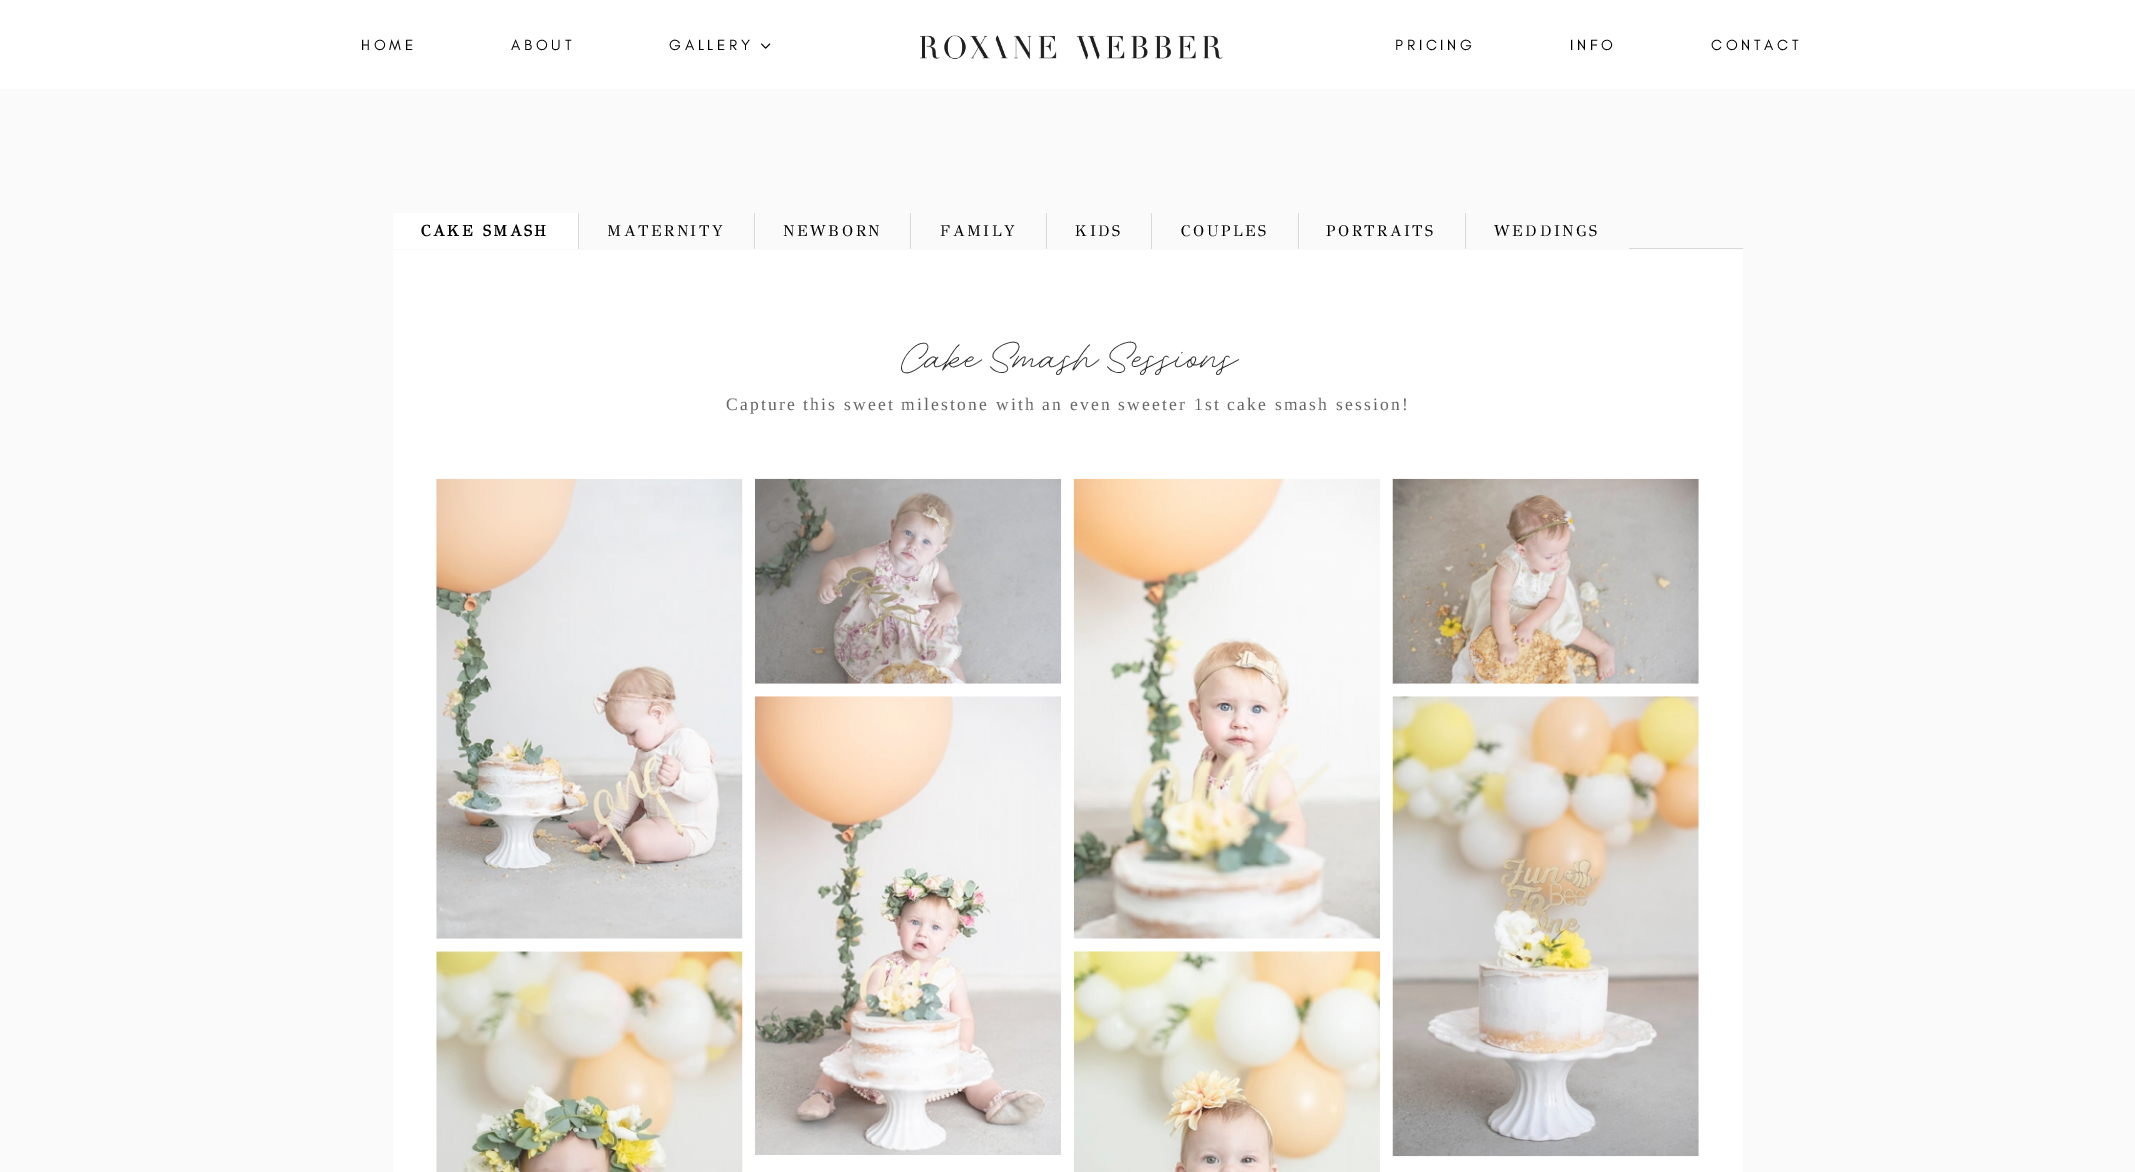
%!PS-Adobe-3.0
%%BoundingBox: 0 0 2135 1172
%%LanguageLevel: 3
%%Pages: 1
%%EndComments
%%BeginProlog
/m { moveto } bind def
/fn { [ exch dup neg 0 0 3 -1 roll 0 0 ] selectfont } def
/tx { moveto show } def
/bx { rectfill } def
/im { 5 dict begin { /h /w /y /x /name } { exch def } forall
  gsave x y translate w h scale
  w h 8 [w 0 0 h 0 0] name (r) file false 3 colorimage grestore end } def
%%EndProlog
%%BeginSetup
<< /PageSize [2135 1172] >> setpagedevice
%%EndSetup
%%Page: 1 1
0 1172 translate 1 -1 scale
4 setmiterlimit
0.98 setgray
0 0 2135 1172 bx
1 setgray
0 0 2135 89 bx
/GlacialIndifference-Regular 15 fn
0 setgray
361 50 m 3.75 0 (HOME) ashow
511 50 m 3.75 0 (ABOUT) ashow
669 50 m 3.75 0 (GALLERY) ashow
(image0.raw) 761 43 10 6 im
(image1.raw) 920 35 303 25 im
1395 50 m 3.75 0 (PRICING) ashow
1570 50 m 3.75 0 (INFO) ashow
1711 50 m 3.75 0 (CONTACT) ashow
1 setgray
393 213 185 36 bx
0.851 setgray
578 213 1 36 bx
/GFSDidot-Bold 15.5 fn
0 setgray
421 236 m 2.5 0 (CAKE SMASH) ashow
0.851 setgray
754 213 1 36 bx
/GFSDidot-Regular 15.5 fn
0 setgray
607 236 m 2.5 0 (MATERNITY) ashow
0.851 setgray
910 213 1 36 bx
0 setgray
783 236 m 2.5 0 (NEWBORN) ashow
0.851 setgray
1046 213 1 36 bx
0 setgray
940 236 m 2.5 0 (FAMILY) ashow
0.851 setgray
1151 213 1 36 bx
0 setgray
1075 236 m 2.5 0 (KIDS) ashow
0.851 setgray
1298 213 1 36 bx
0 setgray
1181 236 m 2.5 0 (COUPLES) ashow
0.851 setgray
1465 213 1 36 bx
0 setgray
1326 236 m 2.5 0 (PORTRAITS) ashow
1494 236 m 2.5 0 (WEDDINGS) ashow
0.851 setgray
1629 248 114 1 bx
1 setgray
393 250 1350 922 bx
/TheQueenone-Regular 50 fn
0.2 setgray
(Cake Smash Sessions) 901 373 tx
/LiberationSerif-Regular 17.5 fn
0.4 setgray
726 410 m 2.2 0 (Capture this sweet milestone with an even sweeter 1st cake smash session!) ashow
(image2.raw) 436 478 307 461 im
(image3.raw) 755 478 307 206 im
(image4.raw) 1073 478 307 461 im
(image5.raw) 1392 478 307 206 im
(image6.raw) 436 951 307 221 im
(image7.raw) 755 696 306 459 im
(image8.raw) 1073 951 307 221 im
(image9.raw) 1392 696 307 461 im
showpage
%%EOF
